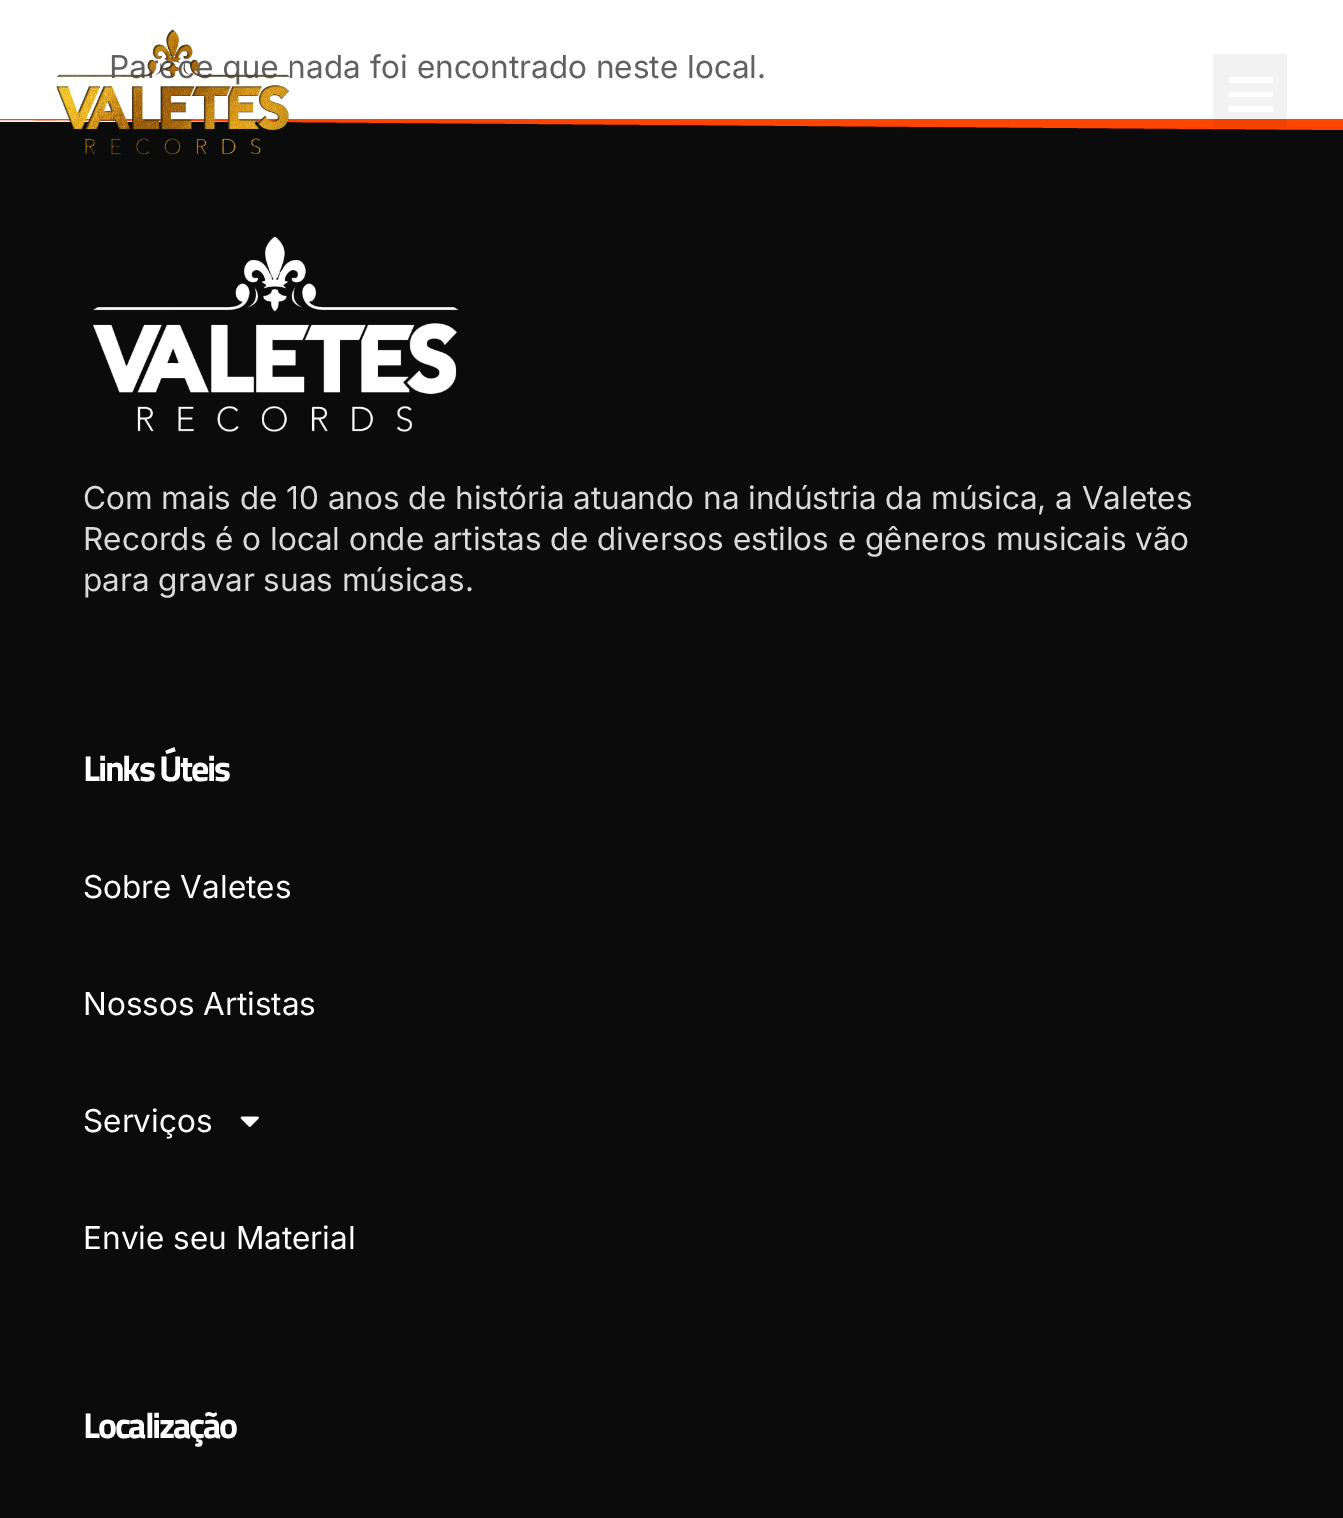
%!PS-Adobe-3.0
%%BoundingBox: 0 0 1343 1518
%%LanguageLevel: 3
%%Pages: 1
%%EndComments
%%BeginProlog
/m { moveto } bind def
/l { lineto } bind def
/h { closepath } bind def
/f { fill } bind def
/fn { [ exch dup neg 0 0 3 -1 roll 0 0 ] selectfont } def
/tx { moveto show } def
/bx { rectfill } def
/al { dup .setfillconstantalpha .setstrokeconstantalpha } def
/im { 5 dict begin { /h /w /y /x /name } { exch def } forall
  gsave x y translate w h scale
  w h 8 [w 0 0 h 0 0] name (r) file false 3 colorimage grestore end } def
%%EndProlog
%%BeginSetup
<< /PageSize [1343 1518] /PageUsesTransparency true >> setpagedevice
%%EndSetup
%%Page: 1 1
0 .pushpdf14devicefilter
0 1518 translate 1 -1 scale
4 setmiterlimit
1 setgray
0 0 1343 1518 bx
/Inter-Regular 31.5 fn
0.376 setgray
(Parece que nada foi encontrado neste local.) 109 78 tx
0.043 setgray
0 122 1343 1396 bx
1 0.271 0 setrgbcolor
0 120 m 0 119 l 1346 119 l 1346 130 l h f
(image0.raw) 56 29 234 126 im
0.05 al
0 setgray
1213 54 74 74 bx
1 al
1 setgray
1273 77 m 1273 83 l 1229 83 l 1229 77 l h 1229 97 m 1273 97 l 1273 92 l 1229 92 l h 1229 112 m 1273 112 l 1273 106 l 1229 106 l h f
(image1.raw) 93 236 366 196 im
0.855 setgray
(Com mais de 10 anos de história atuando na indústria da música, a Valetes) 83 509 tx
(Records é o local onde artistas de diversos estilos e gêneros musicais vão) 83 550 tx
(para gravar suas músicas.) 83 591 tx
/TitilliumWeb-Bold 36 fn
1 setgray
83 781 m -2.25 0 (Links Úteis) ashow
/Inter-Regular 31.5 fn
(Sobre Valetes) 83 898 tx
(Nossos Artistas) 83 1015 tx
(Serviços) 83 1132 tx
(image2.raw) 240 1116 19 11 im
(Envie seu Material) 83 1249 tx
/TitilliumWeb-Bold 36 fn
83 1438 m -2.25 0 (Localização) ashow
.poppdf14devicefilter showpage
%%EOF
